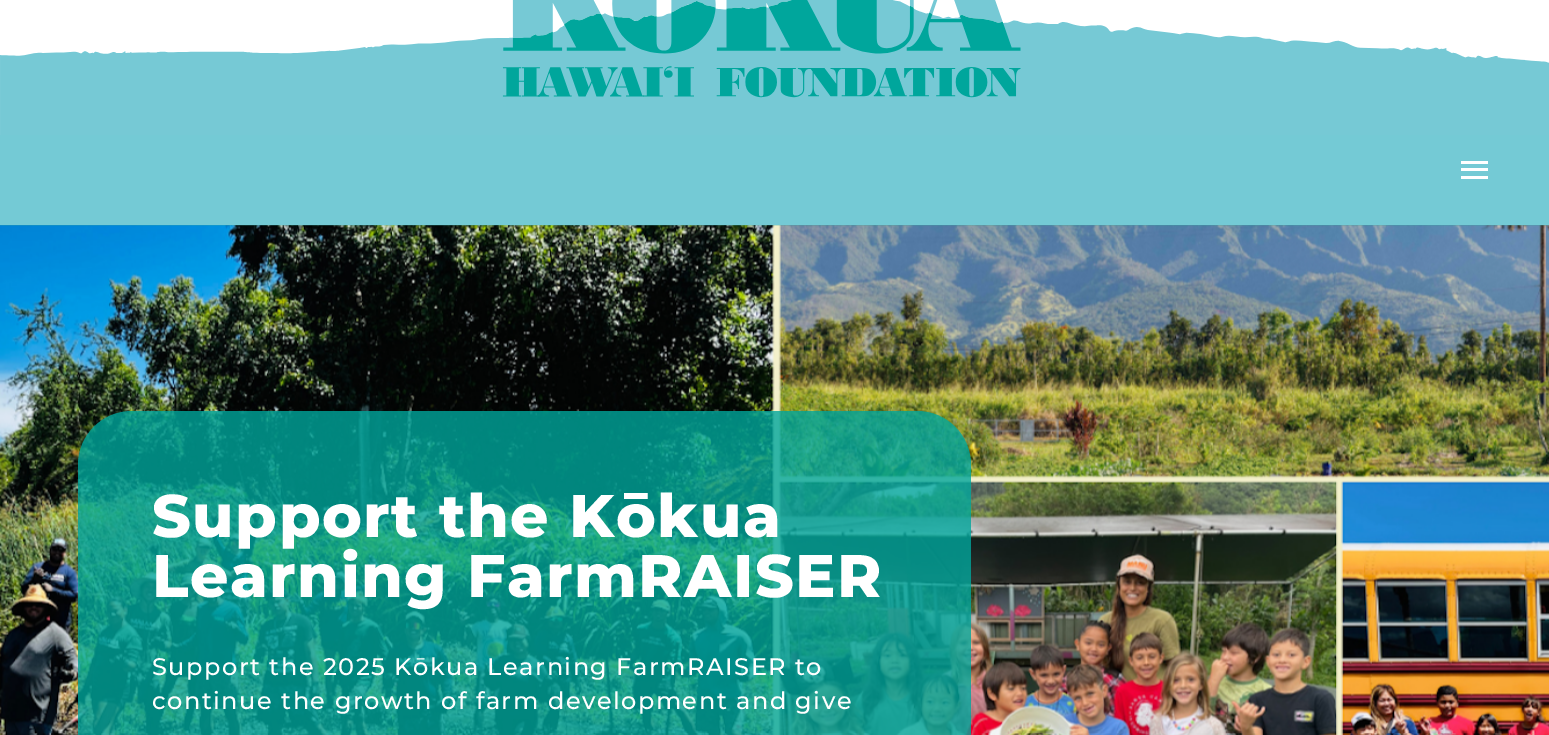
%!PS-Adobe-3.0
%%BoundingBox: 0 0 1549 735
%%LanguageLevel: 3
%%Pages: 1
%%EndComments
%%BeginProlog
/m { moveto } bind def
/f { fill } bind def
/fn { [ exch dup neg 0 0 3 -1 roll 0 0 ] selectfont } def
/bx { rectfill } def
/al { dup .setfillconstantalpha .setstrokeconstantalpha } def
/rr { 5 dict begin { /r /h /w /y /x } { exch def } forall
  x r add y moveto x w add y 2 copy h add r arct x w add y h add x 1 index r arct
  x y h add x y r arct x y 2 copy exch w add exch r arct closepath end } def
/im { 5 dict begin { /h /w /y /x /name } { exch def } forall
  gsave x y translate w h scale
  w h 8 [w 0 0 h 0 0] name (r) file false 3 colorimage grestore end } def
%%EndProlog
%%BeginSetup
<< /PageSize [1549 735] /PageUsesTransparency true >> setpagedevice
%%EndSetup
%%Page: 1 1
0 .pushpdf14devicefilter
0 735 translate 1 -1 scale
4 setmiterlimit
1 setgray
0 0 1549 735 bx
(image0.raw) 0 0 1549 135 im
0.455 0.792 0.835 setrgbcolor
0 135 1549 90 bx
1 setgray
1461 168 27 3 bx
1461 161 27 3 bx
1461 176 27 3 bx
(image1.raw) 0 225 1549 510 im
0.8 al
0 0.651 0.612 setrgbcolor
78 411 893 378 54 rr f
/Montserrat-ExtraBold 60 fn
1 al
1 setgray
152 537 m 1.5 0 (Support the Kōkua) ashow
152 597 m 1.5 0 (Learning FarmRAISER) ashow
/Montserrat-Medium 24 fn
152 675 m 1.5 0 (Support the 2025 Kōkua Learning FarmRAISER to) ashow
152 709 m 1.5 0 (continue the growth of farm development and give) ashow
.poppdf14devicefilter showpage
%%EOF
